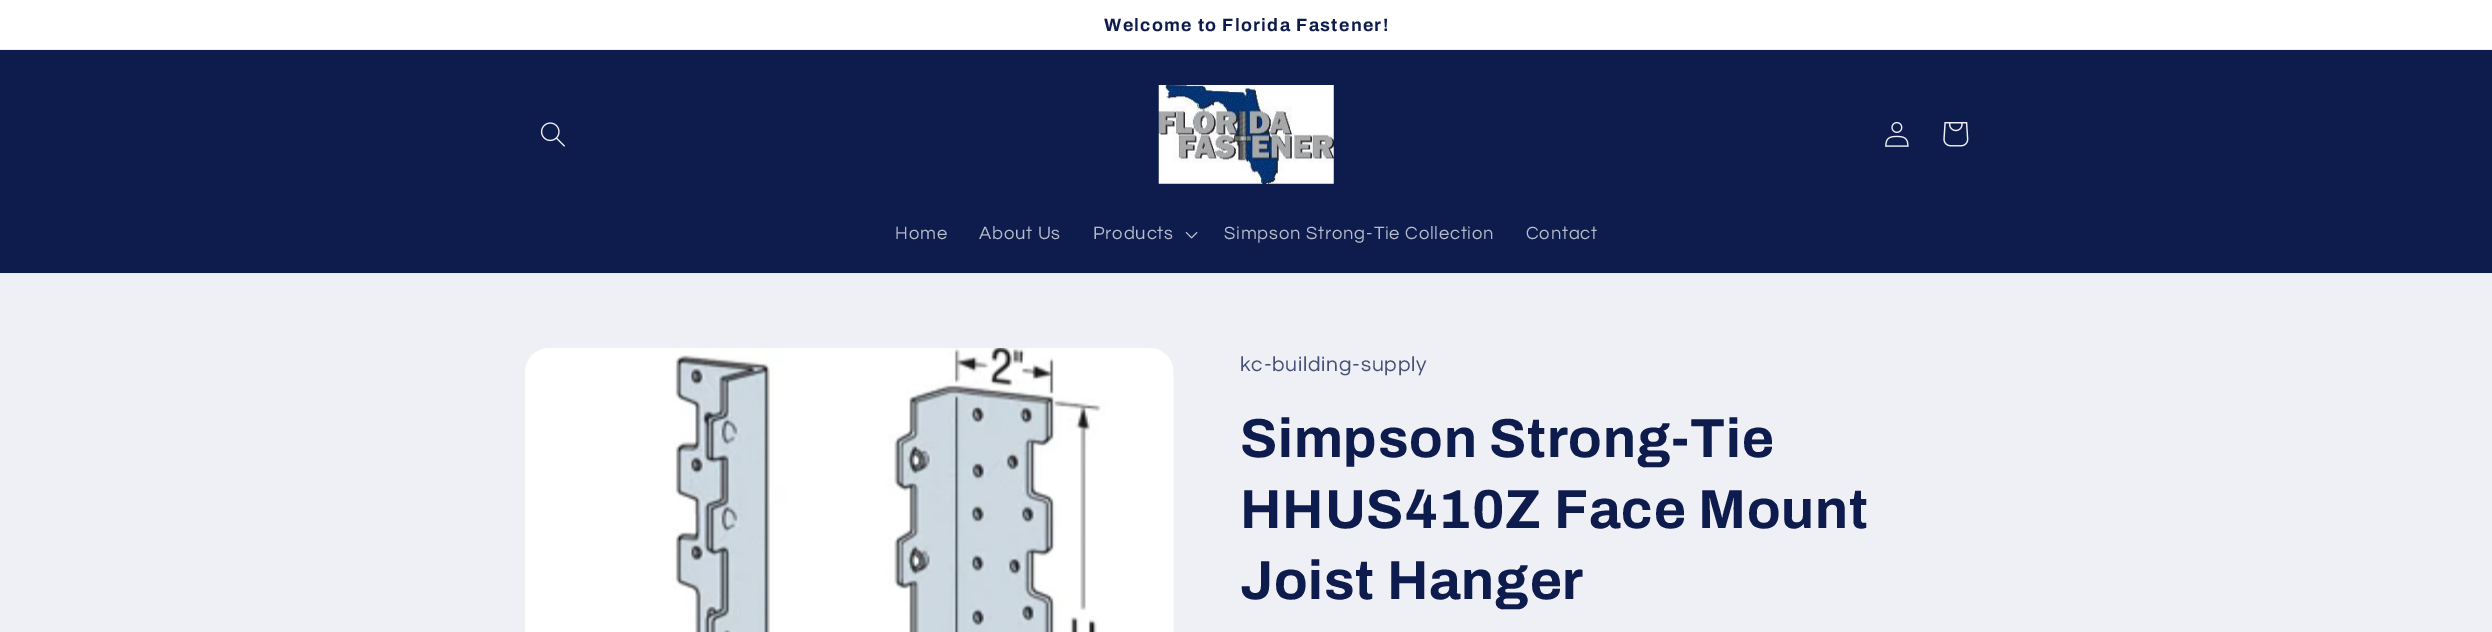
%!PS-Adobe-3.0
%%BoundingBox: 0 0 2492 632
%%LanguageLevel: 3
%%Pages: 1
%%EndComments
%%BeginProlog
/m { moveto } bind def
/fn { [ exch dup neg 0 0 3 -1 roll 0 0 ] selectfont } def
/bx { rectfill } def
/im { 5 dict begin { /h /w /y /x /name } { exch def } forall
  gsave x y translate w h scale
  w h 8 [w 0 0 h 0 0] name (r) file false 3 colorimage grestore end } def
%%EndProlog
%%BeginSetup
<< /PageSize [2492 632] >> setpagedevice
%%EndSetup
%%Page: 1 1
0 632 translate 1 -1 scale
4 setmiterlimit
0.937 0.941 0.961 setrgbcolor
0 0 2492 632 bx
1 setgray
0 0 2492 49 bx
0.925 0.929 0.945 setrgbcolor
0 49 2492 1 bx
/Archivo-Bold 17.9 fn
0.055 0.106 0.302 setrgbcolor
1104 31 m 1.3 0 (Welcome to Florida Fastener!) ashow
0 50 2492 223 bx
(image0.raw) 540 122 25 25 im
(image1.raw) 1158 85 176 99 im
(image2.raw) 1885 121 24 26 im
(image3.raw) 1943 122 26 25 im
/Questrial-Regular 18.4 fn
0.718 0.733 0.796 setrgbcolor
895 239 m 0.8 0 (Home) ashow
979 239 m 0.8 0 (About Us) ashow
1093 239 m 0.8 0 (Products) ashow
(image4.raw) 1185 232 13 7 im
1224 239 m 0.8 0 (Simpson Strong-Tie Collection) ashow
1526 239 m 0.8 0 (Contact) ashow
(image5.raw) 525 348 649 284 im
/Questrial-Regular 21 fn
0.275 0.314 0.467 setrgbcolor
1240 371 m 0.8 0 (kc-building-supply) ashow
/Archivo-Bold 55 fn
0.055 0.106 0.302 setrgbcolor
1240 457 m 0.8 0 (Simpson Strong-Tie) ashow
1240 528 m 0.8 0 (HHUS410Z Face Mount) ashow
1240 599 m 0.8 0 (Joist Hanger) ashow
showpage
%%EOF
